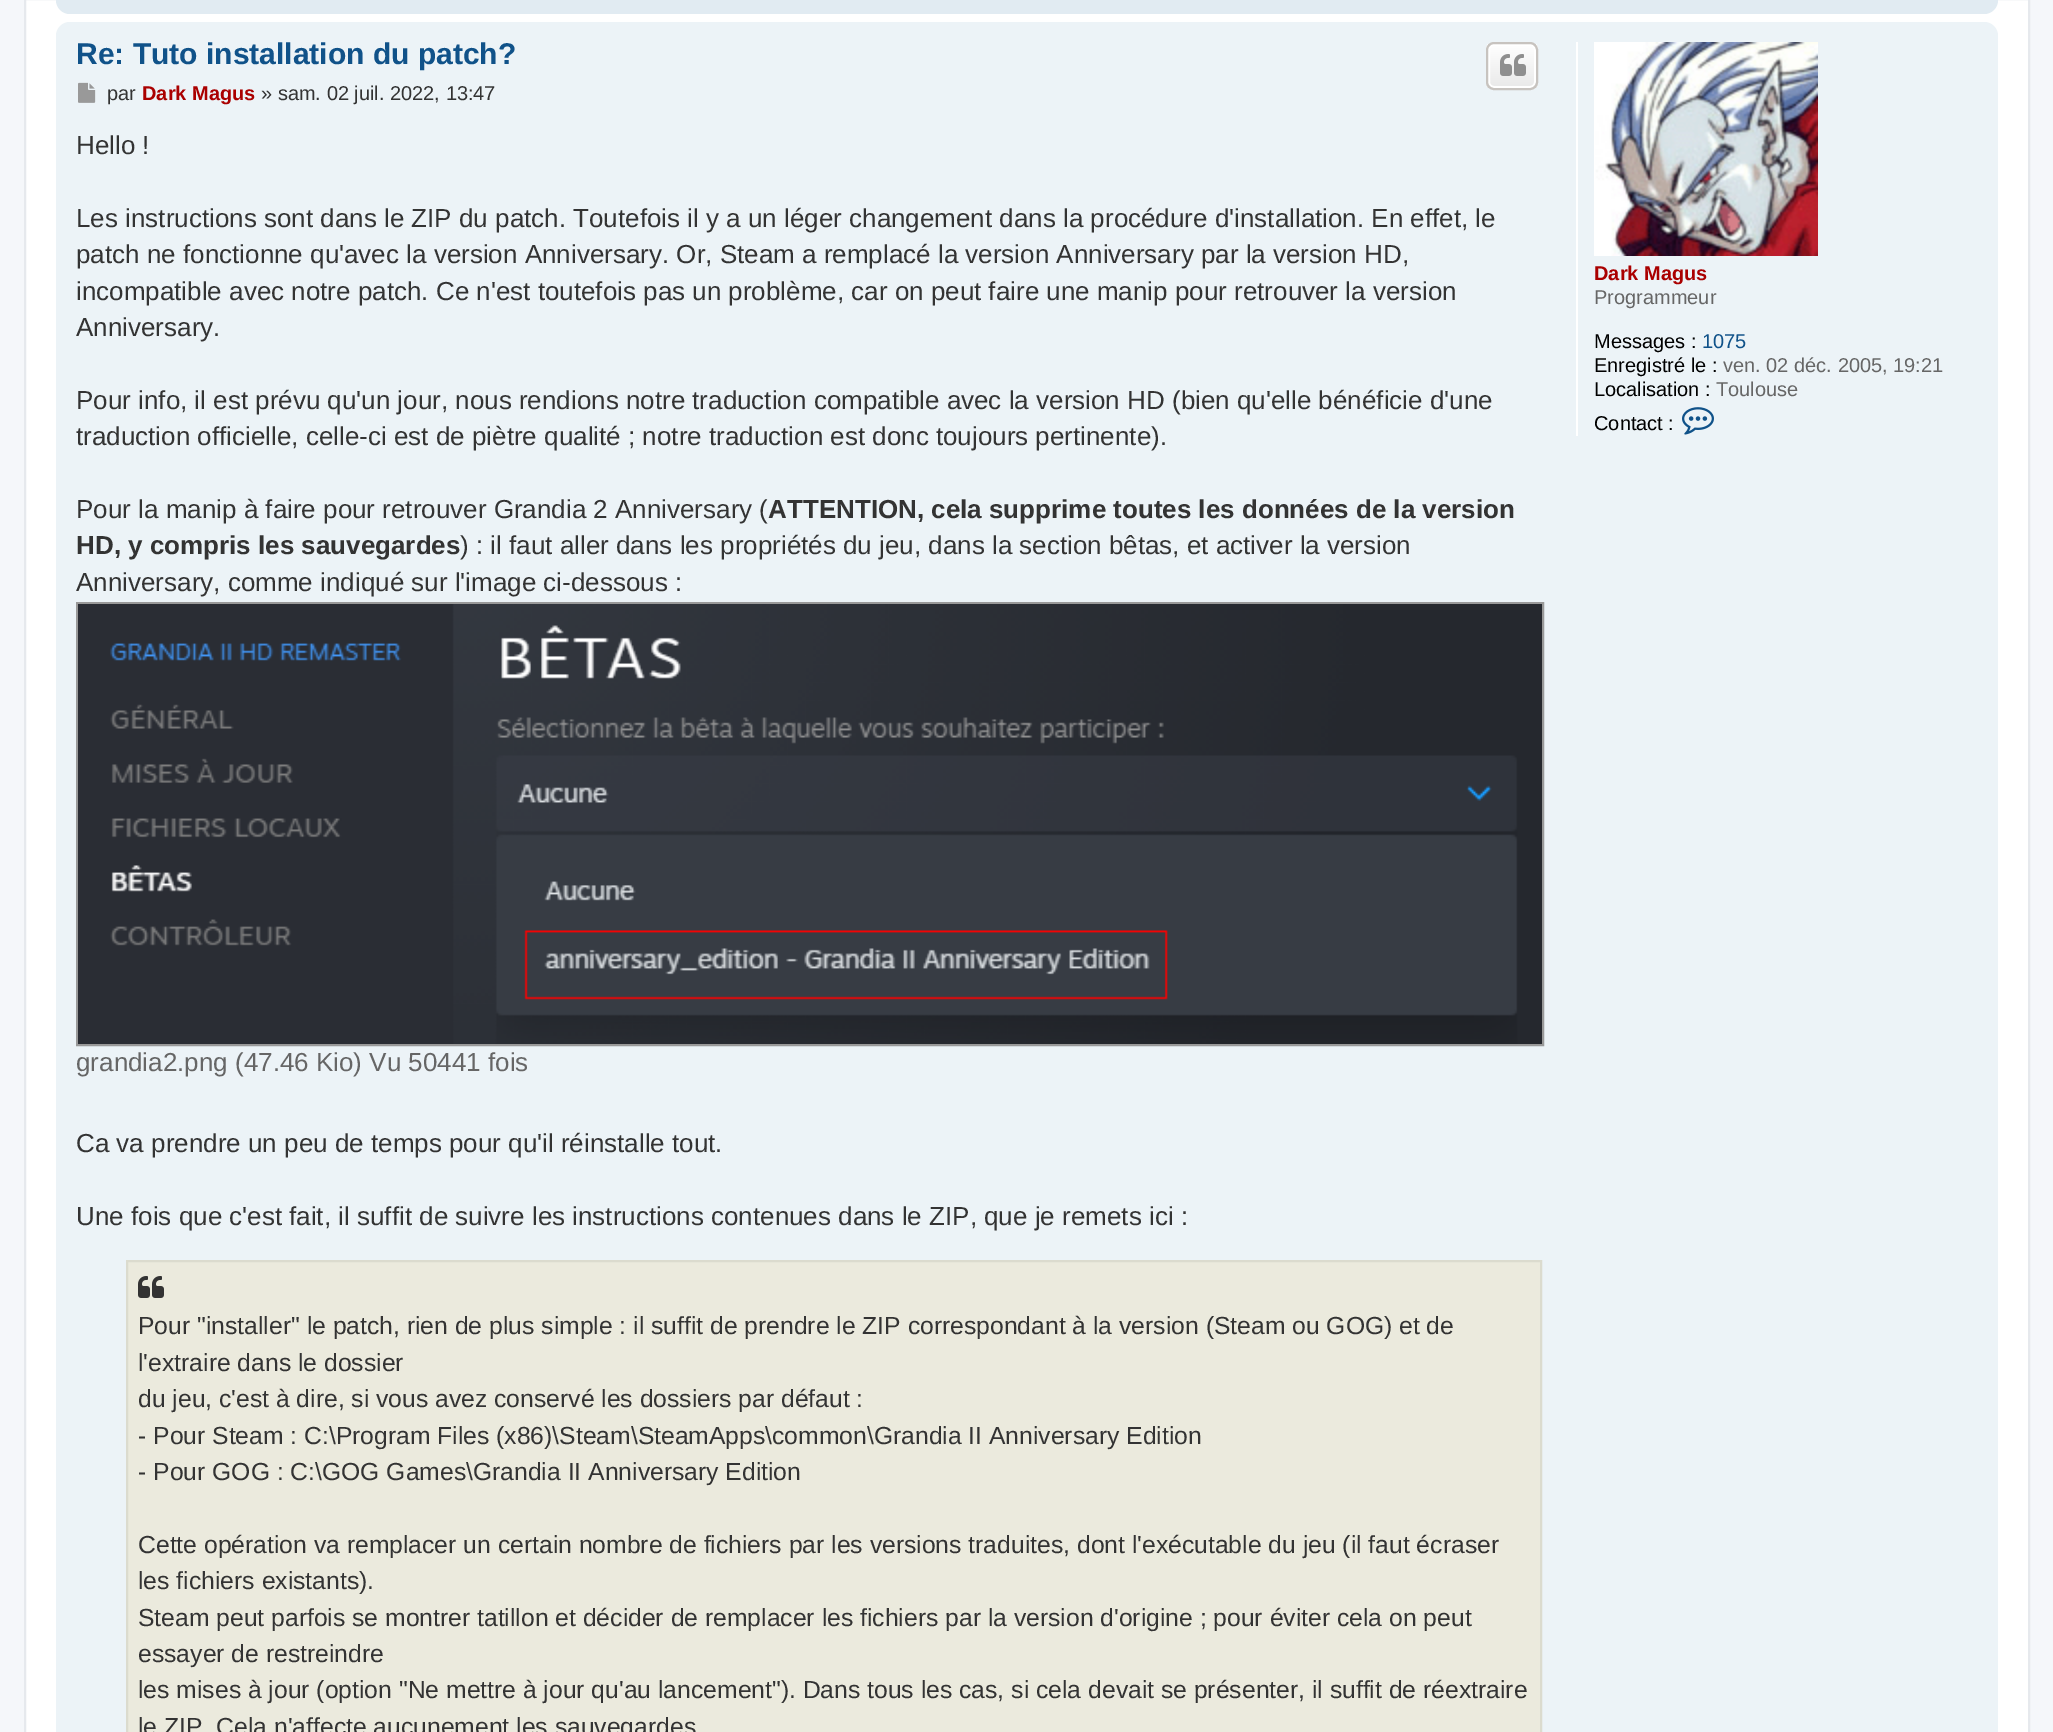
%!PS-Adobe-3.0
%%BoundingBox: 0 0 2053 1732
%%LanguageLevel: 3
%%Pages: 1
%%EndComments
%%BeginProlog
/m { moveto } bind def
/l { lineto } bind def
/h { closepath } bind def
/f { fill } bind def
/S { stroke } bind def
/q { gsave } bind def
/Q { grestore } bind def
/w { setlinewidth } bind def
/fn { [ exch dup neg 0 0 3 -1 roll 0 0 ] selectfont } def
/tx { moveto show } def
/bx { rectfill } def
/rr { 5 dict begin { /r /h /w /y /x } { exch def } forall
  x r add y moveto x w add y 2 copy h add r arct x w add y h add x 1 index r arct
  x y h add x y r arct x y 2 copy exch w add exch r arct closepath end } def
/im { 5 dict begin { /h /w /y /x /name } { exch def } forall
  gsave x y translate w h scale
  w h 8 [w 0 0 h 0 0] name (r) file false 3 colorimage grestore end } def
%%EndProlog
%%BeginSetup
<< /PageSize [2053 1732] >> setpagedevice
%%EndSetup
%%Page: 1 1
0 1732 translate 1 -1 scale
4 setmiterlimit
0.961 0.969 0.98 setrgbcolor
0 0 2053 1732 bx
1 setgray
25 -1 m 2029 -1 l 2029 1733 l 25 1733 l h q f Q
0.902 0.914 0.929 setrgbcolor
2 w
S
0.882 0.922 0.949 setrgbcolor
56 -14 1942 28 14 rr f
0.925 0.953 0.969 setrgbcolor
56 22 1942 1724 14 rr f
/LiberationSans-Bold 30 fn
0.063 0.322 0.537 setrgbcolor
(Re: Tuto installation du patch?) 76 64 tx
q
1486 42 52 48 8 rr clip newpath
q 1486 44 m 1538 44 l 1538 88 l 1486 88 l h clip newpath
<< /ShadingType 2 /ColorSpace /DeviceRGB /Coords [1512 44 1512 88] /Extend [true true] /Function << /FunctionType 2 /Domain [0 1] /C0 [1 1 1] /C1 [0.914 0.914 0.914] /N 1 >> >> shfill Q
Q
1 setgray
1489 45 46 42 5 rr S
0.78 0.765 0.749 setrgbcolor
1487 43 50 46 7 rr S
(image0.raw) 1500 54 26 22 im
(image1.raw) 78 82 18 21 im
/LiberationSans-Regular 20 fn
0.2 setgray
(par) 107 100 tx
/LiberationSans-Bold 20 fn
0.667 0 0 setrgbcolor
(Dark Magus) 142 100 tx
/LiberationSans-Regular 20 fn
0.2 setgray
(» sam. 02 juil. 2022, 13:47) 261 100 tx
/LiberationSans-Regular 26 fn
(Hello !) 76 154 tx
(Les instructions sont dans le ZIP du patch. Toutefois il y a un léger changement dans la procédure d'installation. En effet, le) 76 227 tx
(patch ne fonctionne qu'avec la version Anniversary. Or, Steam a remplacé la version Anniversary par la version HD,) 76 263 tx
(incompatible avec notre patch. Ce n'est toutefois pas un problème, car on peut faire une manip pour retrouver la version) 76 300 tx
(Anniversary.) 76 336 tx
(Pour info, il est prévu qu'un jour, nous rendions notre traduction compatible avec la version HD \(bien qu'elle bénéficie d'une) 76 409 tx
(traduction officielle, celle-ci est de piètre qualité ; notre traduction est donc toujours pertinente\).) 76 445 tx
(Pour la manip à faire pour retrouver Grandia 2 Anniversary \() 76 518 tx
/LiberationSans-Bold 26 fn
(ATTENTION, cela supprime toutes les données de la version) 768 518 tx
(HD, y compris les sauvegardes) 76 554 tx
/LiberationSans-Regular 26 fn
(\) : il faut aller dans les propriétés du jeu, dans la section bêtas, et activer la version) 460 554 tx
(Anniversary, comme indiqué sur l'image ci-dessous :) 76 591 tx
0.6 setgray
77 603 1466 442 rectstroke
(image2.raw) 78 604 1464 440 im
0.4 setgray
(grandia2.png \(47.46 Kio\) Vu 50441 fois) 76 1071 tx
0.2 setgray
(Ca va prendre un peu de temps pour qu'il réinstalle tout.) 76 1152 tx
(Une fois que c'est fait, il suffit de suivre les instructions contenues dans le ZIP, que je remets ici :) 76 1225 tx
0.922 0.918 0.867 setrgbcolor
127 1261 m 1541 1261 l 1541 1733 l 127 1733 l h q f Q
0.859 0.859 0.808 setrgbcolor
S
(image3.raw) 138 1276 26 22 im
/LiberationSans-Regular 24.7 fn
0.2 setgray
(Pour "installer" le patch, rien de plus simple : il suffit de prendre le ZIP correspondant à la version \(Steam ou GOG\) et de) 138 1334 tx
(l'extraire dans le dossier) 138 1371 tx
(du jeu, c'est à dire, si vous avez conservé les dossiers par défaut :) 138 1407 tx
(- Pour Steam : C:\\Program Files \(x86\)\\Steam\\SteamApps\\common\\Grandia II Anniversary Edition) 138 1444 tx
(- Pour GOG : C:\\GOG Games\\Grandia II Anniversary Edition) 138 1480 tx
(Cette opération va remplacer un certain nombre de fichiers par les versions traduites, dont l'exécutable du jeu \(il faut écraser) 138 1553 tx
(les fichiers existants\).) 138 1589 tx
(Steam peut parfois se montrer tatillon et décider de remplacer les fichiers par la version d'origine ; pour éviter cela on peut) 138 1626 tx
(essayer de restreindre) 138 1662 tx
(les mises à jour \(option "Ne mettre à jour qu'au lancement"\). Dans tous les cas, si cela devait se présenter, il suffit de réextraire) 138 1698 tx
(le ZIP. Cela n'affecte aucunement les sauvegardes) 138 1735 tx
1 setgray
1576 42 2 394 bx
(image4.raw) 1594 42 224 214 im
/LiberationSans-Bold 20 fn
0.667 0 0 setrgbcolor
(Dark Magus) 1594 280 tx
/LiberationSans-Regular 20 fn
0.4 setgray
(Programmeur) 1594 304 tx
0 setgray
(Messages :) 1594 348 tx
0.063 0.322 0.537 setrgbcolor
(1075) 1702 348 tx
0 setgray
(Enregistré le :) 1594 372 tx
0.4 setgray
(ven. 02 déc. 2005, 19:21) 1723 372 tx
0 setgray
(Localisation :) 1594 396 tx
0.4 setgray
(Toulouse) 1716 396 tx
0 setgray
(Contact :) 1594 430 tx
(image5.raw) 1682 407 32 28 im
showpage
%%EOF
